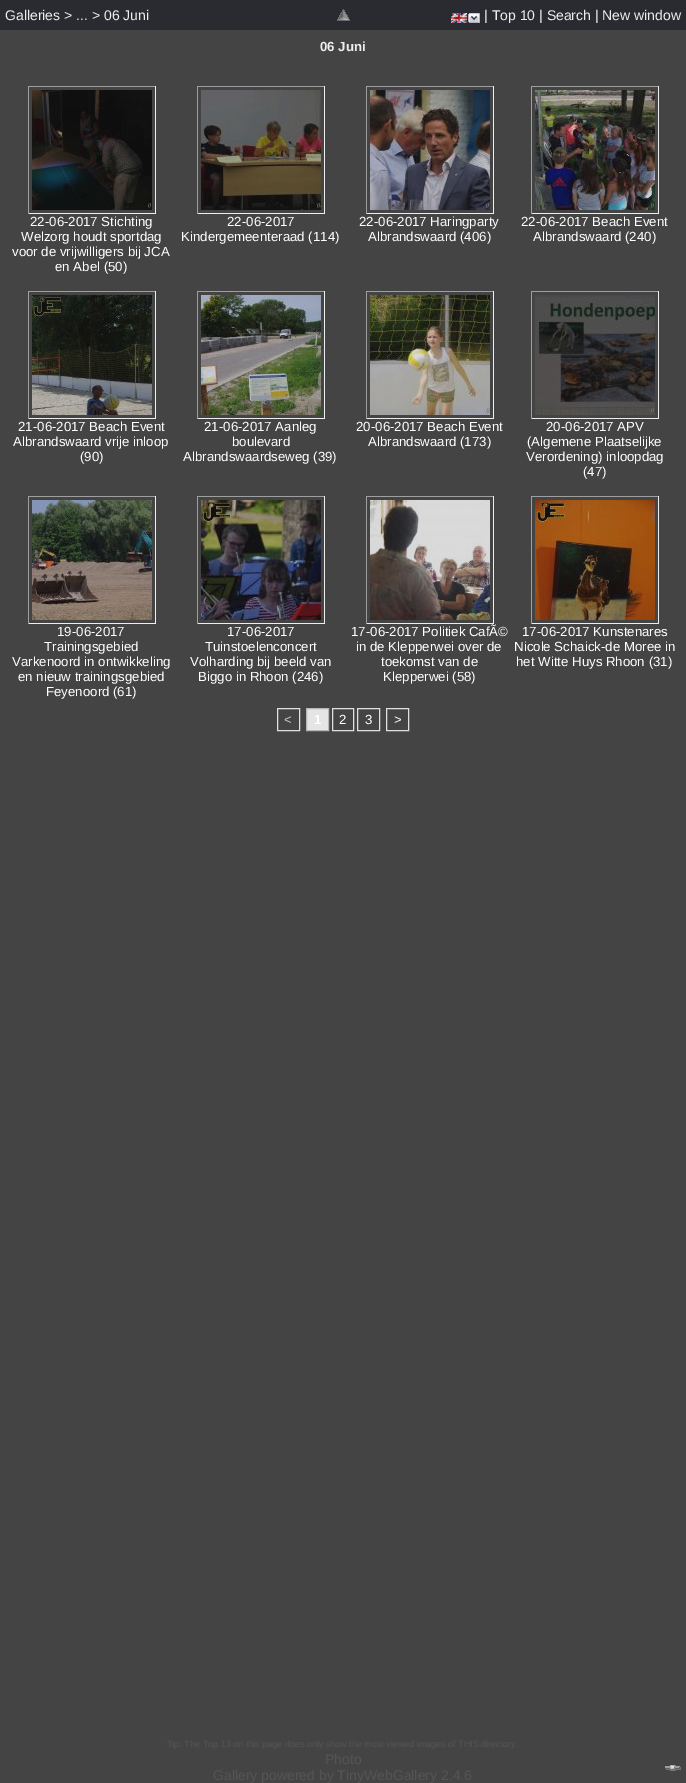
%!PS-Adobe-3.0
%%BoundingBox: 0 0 686 1783
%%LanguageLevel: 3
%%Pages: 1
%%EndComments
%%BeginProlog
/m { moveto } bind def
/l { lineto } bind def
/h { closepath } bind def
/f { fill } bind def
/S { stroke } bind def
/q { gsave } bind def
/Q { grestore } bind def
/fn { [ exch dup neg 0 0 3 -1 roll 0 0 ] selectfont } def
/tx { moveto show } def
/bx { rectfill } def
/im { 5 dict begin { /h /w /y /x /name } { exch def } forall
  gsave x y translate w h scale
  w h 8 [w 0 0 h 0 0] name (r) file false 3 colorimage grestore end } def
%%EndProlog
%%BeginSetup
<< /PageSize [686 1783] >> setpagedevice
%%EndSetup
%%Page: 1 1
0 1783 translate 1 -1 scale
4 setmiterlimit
0.165 0.169 0.188 setrgbcolor
0 0 686 1783 bx
/LiberationSans-Regular 14 fn
0.933 setgray
(Galleries > ... > 06 Juni) 5 20 tx
(image0.raw) 337 9 13 12 im
(image1.raw) 451 13 16 10 im
(image2.raw) 468 13 12 10 im
(| Top 10 | Search | New window) 484 20 tx
0.267 setgray
0 30 686 1753 bx
/LiberationSans-Bold 13.25 fn
0.933 setgray
(06 Juni) 320 51 tx
0.624 setgray
28 86 128 1 bx
0.933 setgray
155 86 1 128 bx
28 213 128 1 bx
0.624 setgray
28 86 1 128 bx
(image3.raw) 32 90 120 120 im
/LiberationSans-Regular 13.25 fn
1 setgray
(22-06-2017 Stichting) 30 226 tx
(Welzorg houdt sportdag) 21 241 tx
(voor de vrijwilligers bij JCA) 12 256 tx
(en Abel \(50\)) 55 271 tx
0.624 setgray
197 86 128 1 bx
0.933 setgray
324 86 1 128 bx
197 213 128 1 bx
0.624 setgray
197 86 1 128 bx
(image4.raw) 201 90 120 120 im
1 setgray
(22-06-2017) 227 226 tx
(Kindergemeenteraad \(114\)) 181 241 tx
0.624 setgray
366 86 128 1 bx
0.933 setgray
493 86 1 128 bx
366 213 128 1 bx
0.624 setgray
366 86 1 128 bx
(image5.raw) 370 90 120 120 im
1 setgray
(22-06-2017 Haringparty) 359 226 tx
(Albrandswaard \(406\)) 368 241 tx
0.624 setgray
531 86 128 1 bx
0.933 setgray
658 86 1 128 bx
531 213 128 1 bx
0.624 setgray
531 86 1 128 bx
(image6.raw) 535 90 120 120 im
1 setgray
(22-06-2017 Beach Event) 521 226 tx
(Albrandswaard \(240\)) 533 241 tx
0.624 setgray
28 291 128 1 bx
0.933 setgray
155 291 1 128 bx
28 418 128 1 bx
0.624 setgray
28 291 1 128 bx
(image7.raw) 32 295 120 120 im
1 setgray
(21-06-2017 Beach Event) 18 431 tx
(Albrandswaard vrije inloop) 13 446 tx
(\(90\)) 80 461 tx
0.624 setgray
197 291 128 1 bx
0.933 setgray
324 291 1 128 bx
197 418 128 1 bx
0.624 setgray
197 291 1 128 bx
(image8.raw) 201 295 120 120 im
1 setgray
(21-06-2017 Aanleg) 204 431 tx
(boulevard) 232 446 tx
(Albrandswaardseweg \(39\)) 183 461 tx
0.624 setgray
366 291 128 1 bx
0.933 setgray
493 291 1 128 bx
366 418 128 1 bx
0.624 setgray
366 291 1 128 bx
(image9.raw) 370 295 120 120 im
1 setgray
(20-06-2017 Beach Event) 356 431 tx
(Albrandswaard \(173\)) 368 446 tx
0.624 setgray
531 291 128 1 bx
0.933 setgray
658 291 1 128 bx
531 418 128 1 bx
0.624 setgray
531 291 1 128 bx
(image10.raw) 535 295 120 120 im
1 setgray
(20-06-2017 APV) 546 431 tx
(\(Algemene Plaatselijke) 527 446 tx
(Verordening\) inloopdag) 526 461 tx
(\(47\)) 583 476 tx
0.624 setgray
28 496 128 1 bx
0.933 setgray
155 496 1 128 bx
28 623 128 1 bx
0.624 setgray
28 496 1 128 bx
(image11.raw) 32 500 120 120 im
1 setgray
(19-06-2017) 57 636 tx
(Trainingsgebied) 44 651 tx
(Varkenoord in ontwikkeling) 12 666 tx
(en nieuw trainingsgebied) 18 681 tx
(Feyenoord \(61\)) 46 696 tx
0.624 setgray
197 496 128 1 bx
0.933 setgray
324 496 1 128 bx
197 623 128 1 bx
0.624 setgray
197 496 1 128 bx
(image12.raw) 201 500 120 120 im
1 setgray
(17-06-2017) 227 636 tx
(Tuinstoelenconcert) 205 651 tx
(Volharding bij beeld van) 190 666 tx
(Biggo in Rhoon \(246\)) 198 681 tx
0.624 setgray
366 496 128 1 bx
0.933 setgray
493 496 1 128 bx
366 623 128 1 bx
0.624 setgray
366 496 1 128 bx
(image13.raw) 370 500 120 120 im
1 setgray
(17-06-2017 Politiek CafÃ©) 351 636 tx
(in de Klepperwei over de) 356 651 tx
(toekomst van de) 381 666 tx
(Klepperwei \(58\)) 383 681 tx
0.624 setgray
531 496 128 1 bx
0.933 setgray
658 496 1 128 bx
531 623 128 1 bx
0.624 setgray
531 496 1 128 bx
(image14.raw) 535 500 120 120 im
1 setgray
(17-06-2017 Kunstenares) 522 636 tx
(Nicole Schaick-de Moree in) 514 651 tx
(het Witte Huys Rhoon \(31\)) 516 666 tx
0.878 setgray
277.5 708.5 22 22 rectstroke
0.8 setgray
(<) 284 724 tx
0.898 setgray
306.5 708.5 m 328.5 708.5 l 328.5 730.5 l 306.5 730.5 l h q f Q
0.718 setgray
S
/LiberationSans-Bold 13.25 fn
1 setgray
(1) 314 724 tx
0.878 setgray
332.5 708.5 21 22 rectstroke
/LiberationSans-Regular 13.25 fn
1 setgray
(2) 339 724 tx
0.878 setgray
357.5 708.5 22 22 rectstroke
1 setgray
(3) 365 724 tx
0.878 setgray
386.5 708.5 22 22 rectstroke
1 setgray
(>) 394 724 tx
/LiberationSans-Regular 9 fn
0.333 setgray
(Tip: The Top 13 on this page does only show the most viewed images of THIS directory.) 167 1747 tx
/LiberationSans-Regular 14 fn
(Photo) 325 1764 tx
(Gallery powered by TinyWebGallery 2.4.6) 213 1780 tx
(image15.raw) 665 1765 16 6 im
showpage
%%EOF
